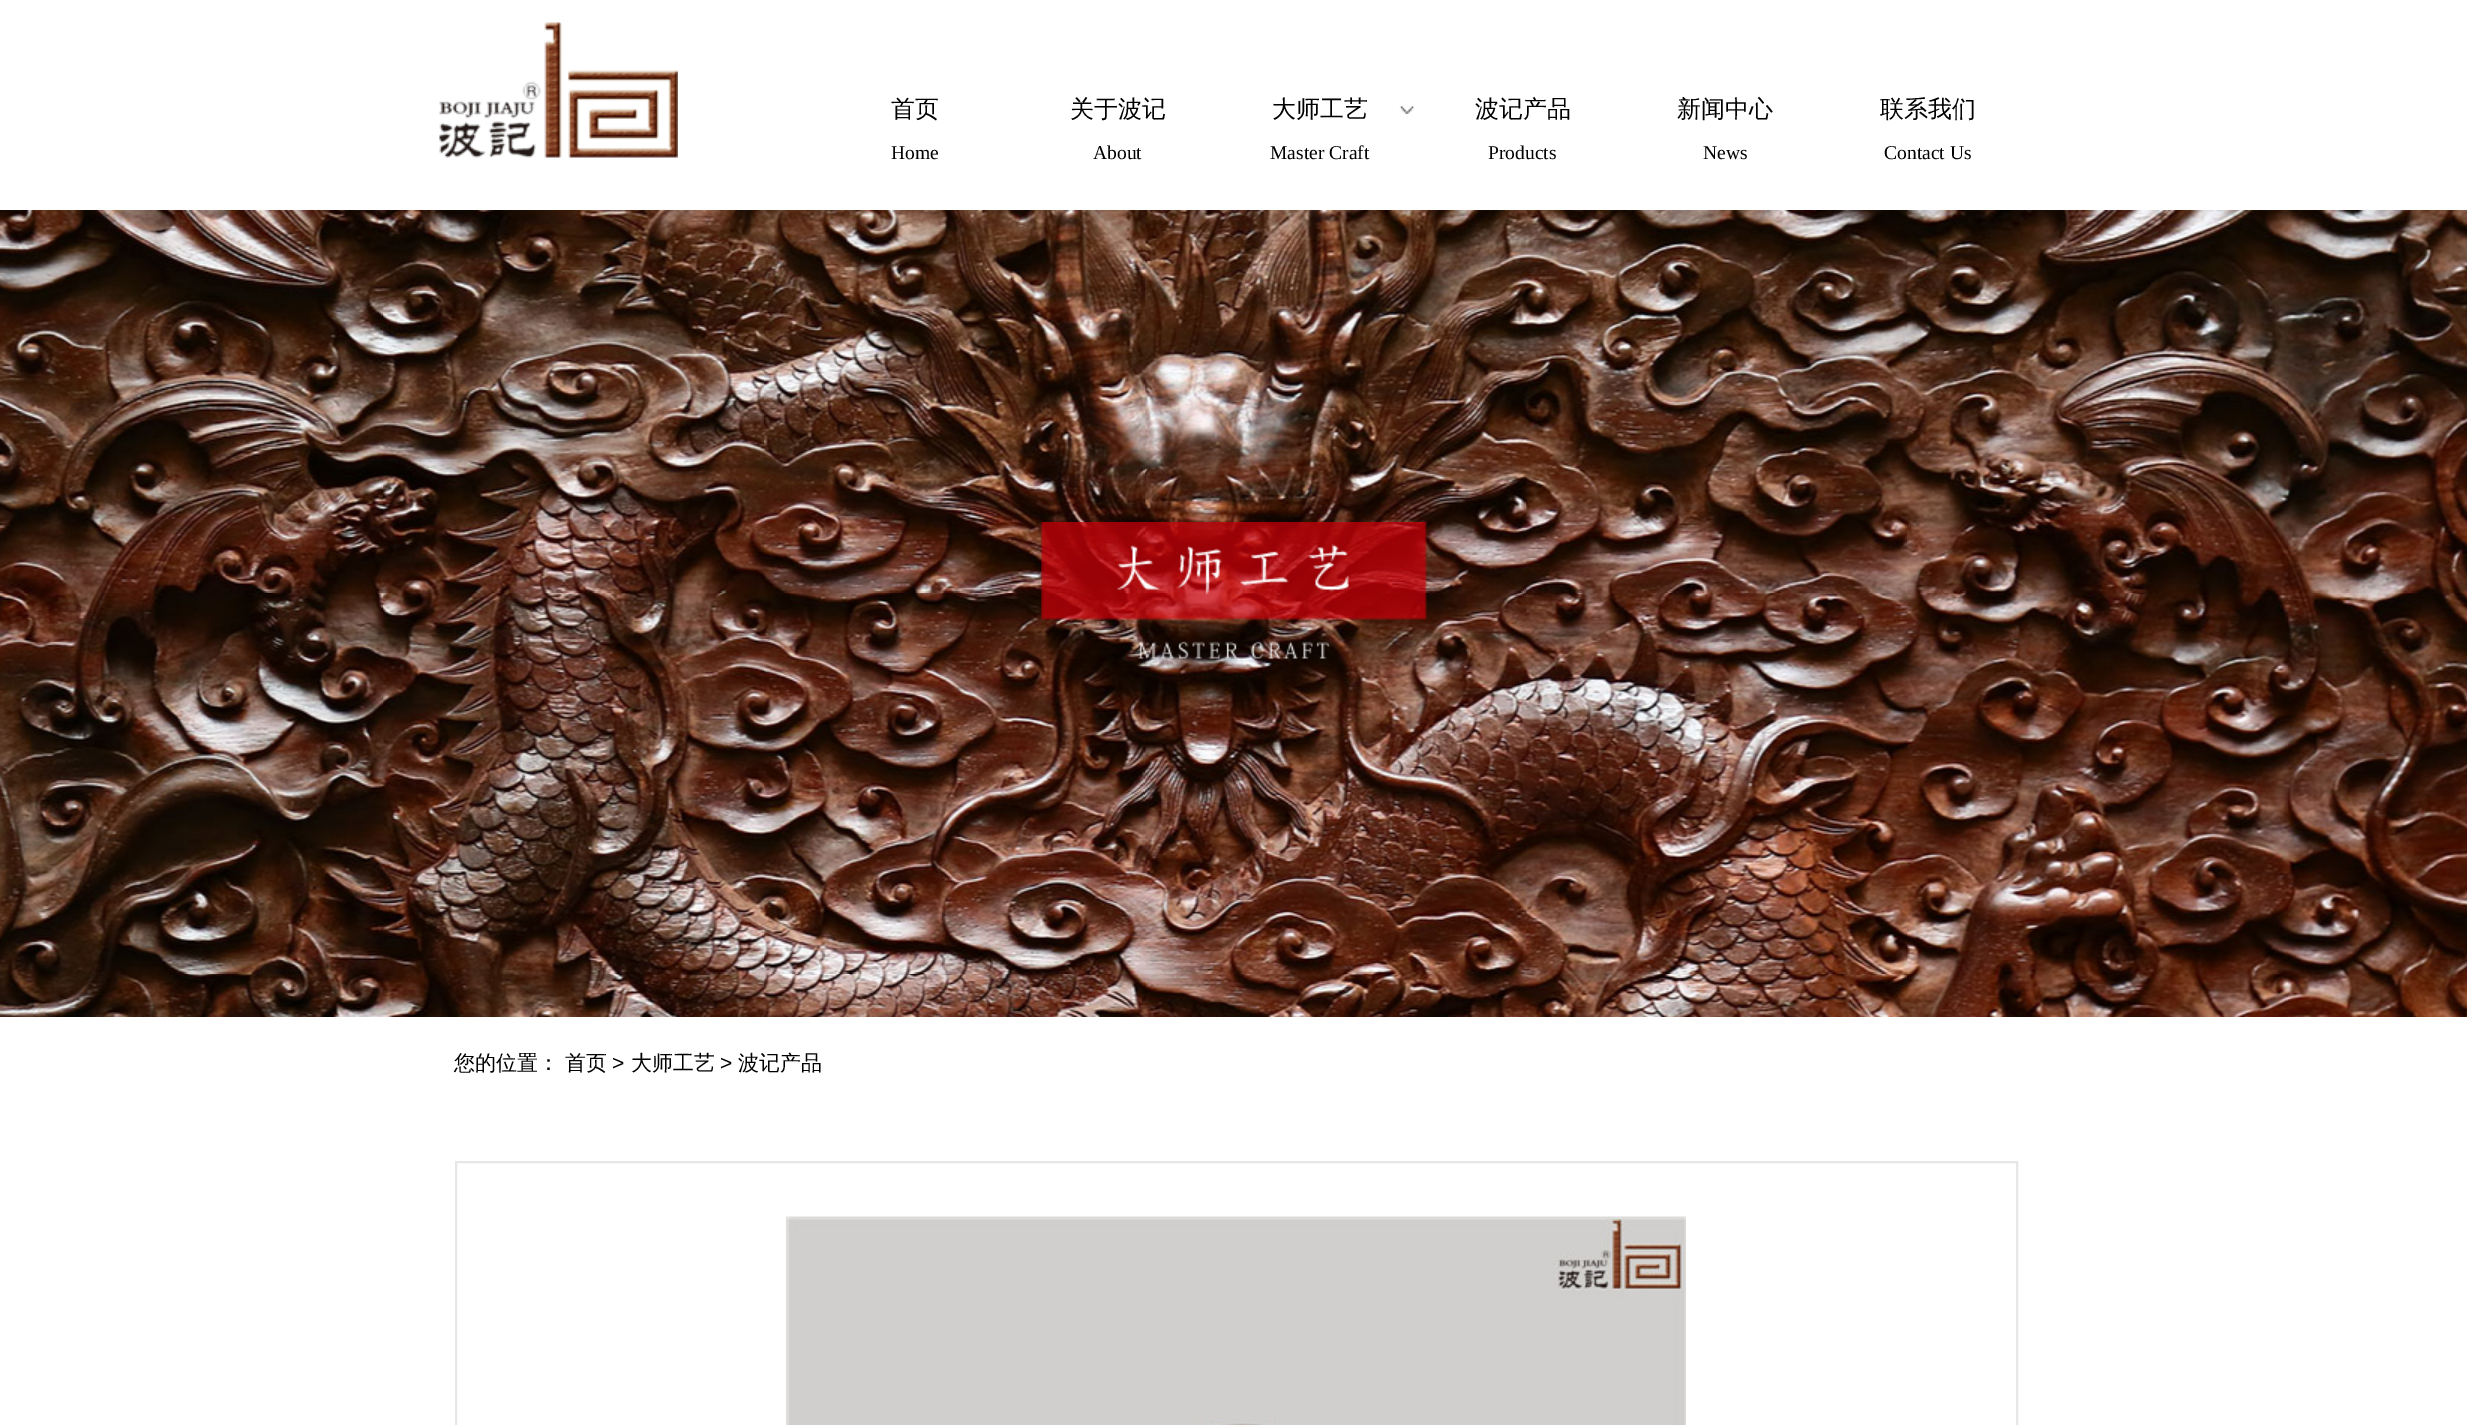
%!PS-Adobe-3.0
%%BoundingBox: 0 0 2467 1425
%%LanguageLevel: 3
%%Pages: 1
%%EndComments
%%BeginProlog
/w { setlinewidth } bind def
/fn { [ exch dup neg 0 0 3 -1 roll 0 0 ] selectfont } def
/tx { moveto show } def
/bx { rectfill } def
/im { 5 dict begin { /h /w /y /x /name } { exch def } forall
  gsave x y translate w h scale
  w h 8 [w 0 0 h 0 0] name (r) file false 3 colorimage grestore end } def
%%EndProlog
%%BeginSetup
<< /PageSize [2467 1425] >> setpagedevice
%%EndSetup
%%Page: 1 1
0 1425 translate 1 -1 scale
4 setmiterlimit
1 setgray
0 0 2467 1425 bx
(image0.raw) 439 22 239 136 im
/WenQuanYiZenHei-Medium 24 fn
0 setgray
(首页) 891 117 tx
/LiberationSerif-Regular 19.5 fn
(Home) 891 159 tx
/WenQuanYiZenHei-Medium 24 fn
(关于波记) 1070 117 tx
/LiberationSerif-Regular 19.5 fn
(About) 1093 159 tx
/WenQuanYiZenHei-Medium 24 fn
(大师工艺) 1272 117 tx
(image1.raw) 1399 106 16 8 im
/LiberationSerif-Regular 19.5 fn
(Master Craft) 1270 159 tx
/WenQuanYiZenHei-Medium 24 fn
(波记产品) 1475 117 tx
/LiberationSerif-Regular 19.5 fn
(Products) 1488 159 tx
/WenQuanYiZenHei-Medium 24 fn
(新闻中心) 1677 117 tx
/LiberationSerif-Regular 19.5 fn
(News) 1703 159 tx
/WenQuanYiZenHei-Medium 24 fn
(联系我们) 1880 117 tx
/LiberationSerif-Regular 19.5 fn
(Contact Us) 1884 159 tx
(image2.raw) 0 210 2467 807 im
(image3.raw) 1041 522 386 137 im
/WenQuanYiZenHei-Medium 21 fn
(您的位置：) 454 1070 tx
(首页) 565 1070 tx
/LiberationSans-Regular 21 fn
(>) 612 1070 tx
/WenQuanYiZenHei-Medium 21 fn
(大师工艺) 631 1070 tx
/LiberationSans-Regular 21 fn
(>) 720 1070 tx
/WenQuanYiZenHei-Medium 21 fn
(波记产品) 738 1070 tx
0.906 setgray
2 w
456 1162 1561 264 rectstroke
(image4.raw) 786 1216 900 209 im
showpage
%%EOF
